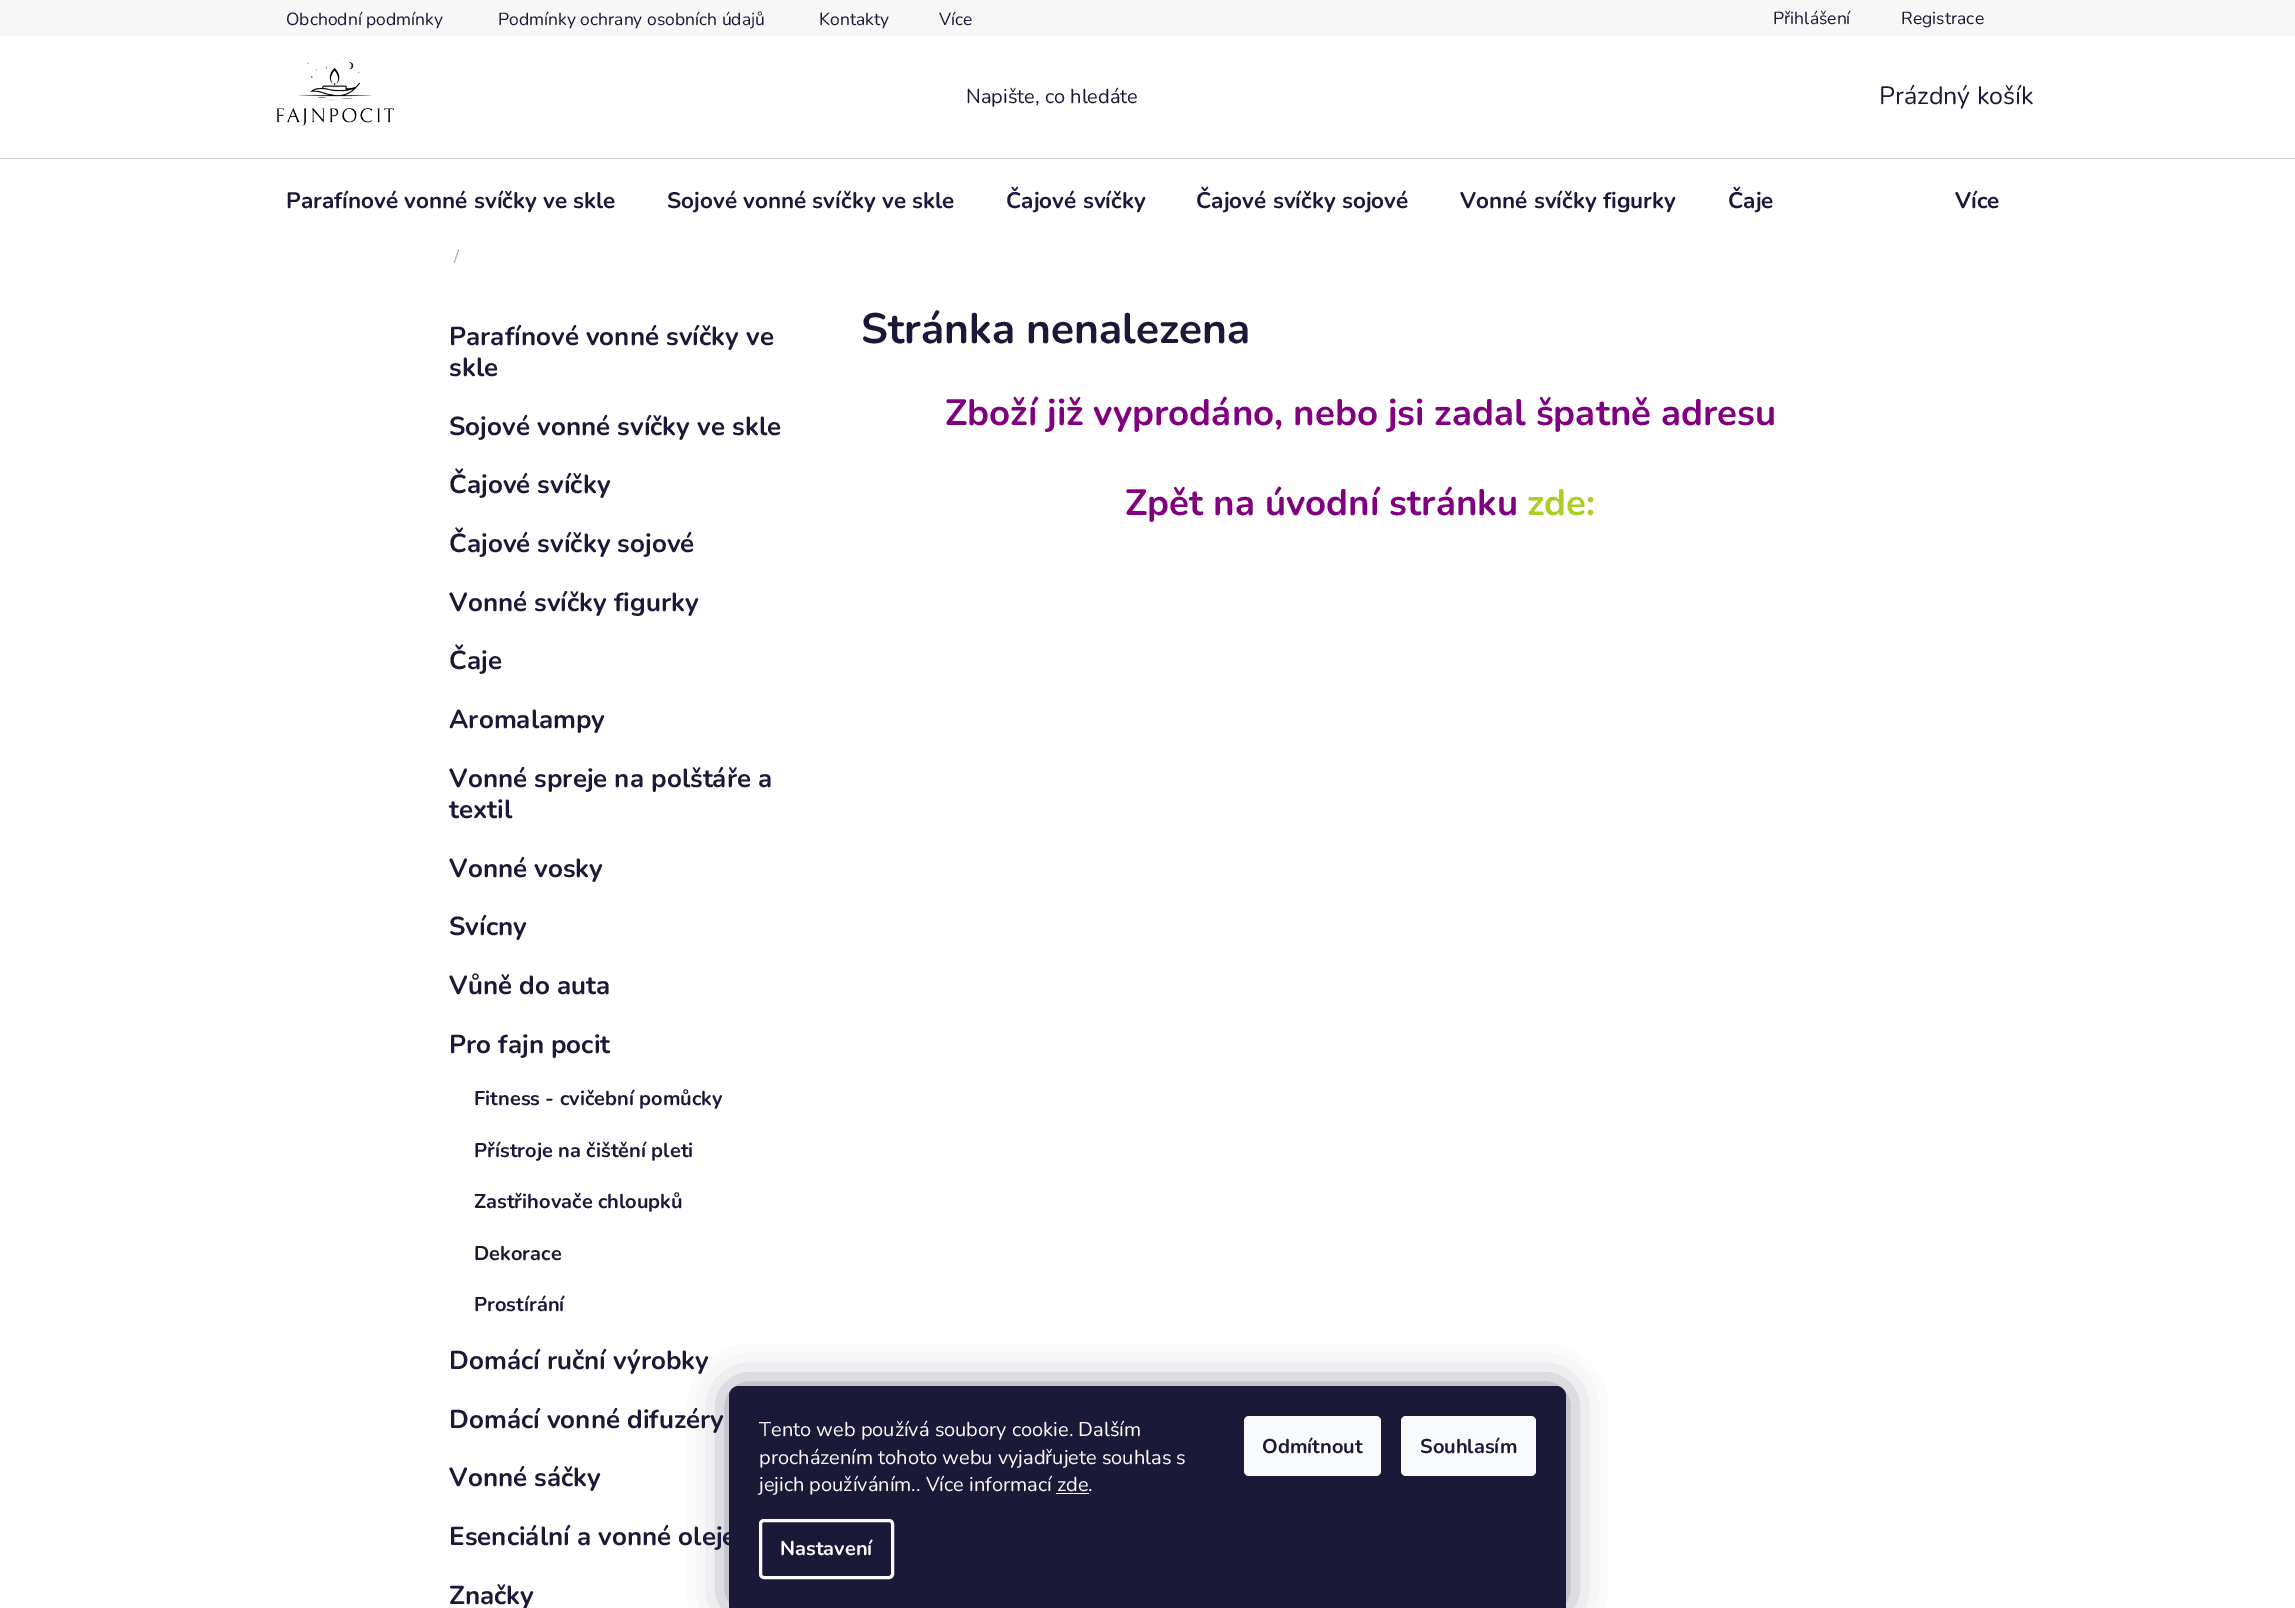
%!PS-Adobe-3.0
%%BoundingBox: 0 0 2295 1608
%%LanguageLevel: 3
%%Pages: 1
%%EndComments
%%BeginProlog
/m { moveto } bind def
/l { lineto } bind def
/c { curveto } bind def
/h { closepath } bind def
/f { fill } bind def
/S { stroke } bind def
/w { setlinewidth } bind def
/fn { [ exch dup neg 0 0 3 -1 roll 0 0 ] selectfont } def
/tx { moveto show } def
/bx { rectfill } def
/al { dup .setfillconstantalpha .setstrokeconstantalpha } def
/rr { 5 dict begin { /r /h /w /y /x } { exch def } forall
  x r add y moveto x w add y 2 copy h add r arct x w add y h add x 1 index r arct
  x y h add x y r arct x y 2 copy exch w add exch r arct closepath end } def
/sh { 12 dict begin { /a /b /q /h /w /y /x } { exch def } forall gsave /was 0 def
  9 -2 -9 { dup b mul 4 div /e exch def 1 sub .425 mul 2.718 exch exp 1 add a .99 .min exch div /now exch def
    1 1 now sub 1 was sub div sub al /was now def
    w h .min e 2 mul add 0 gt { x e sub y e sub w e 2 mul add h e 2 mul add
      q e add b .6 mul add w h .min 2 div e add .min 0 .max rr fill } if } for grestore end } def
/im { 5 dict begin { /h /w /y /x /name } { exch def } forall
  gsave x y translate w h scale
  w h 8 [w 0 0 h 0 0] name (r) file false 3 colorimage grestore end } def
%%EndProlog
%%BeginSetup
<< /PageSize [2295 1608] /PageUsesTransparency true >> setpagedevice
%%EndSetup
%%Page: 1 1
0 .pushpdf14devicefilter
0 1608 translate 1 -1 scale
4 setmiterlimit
1 setgray
0 0 2295 1608 bx
0.969 setgray
0 0 2295 36 bx
/Nunito-Regular 17.5 fn
0.102 0.098 0.216 setrgbcolor
(Obchodní podmínky) 286 25 tx
(Podmínky ochrany osobních údajů) 498 25 tx
(Kontakty) 819 25 tx
(Více) 939 25 tx
(Přihlášení) 1773 24 tx
(Registrace) 1901 24 tx
(image0.raw) 276 60 133 66 im
/Nunito-Regular 20 fn
(Napište, co hledáte) 966 103 tx
/Nunito-Regular 25 fn
(Prázdný košík) 1879 104 tx
0.812 setgray
0 158 2295 1 bx
/Nunito-Bold 22.5 fn
0.102 0.098 0.216 setrgbcolor
(Parafínové vonné svíčky ve skle) 286 208 tx
(Sojové vonné svíčky ve skle) 667 208 tx
(Čajové svíčky) 1006 208 tx
(Čajové svíčky sojové) 1196 208 tx
(Vonné svíčky figurky) 1460 208 tx
(Čaje) 1728 208 tx
(Více) 1955 208 tx
/Nunito-Regular 17.5 fn
0.667 setgray
(/) 454 262 tx
/Nunito-Bold 26 fn
0.102 0.098 0.216 setrgbcolor
(Parafínové vonné svíčky ve) 449 345 tx
(skle) 449 376 tx
(Sojové vonné svíčky ve skle) 449 435 tx
(Čajové svíčky) 449 493 tx
(Čajové svíčky sojové) 449 552 tx
(Vonné svíčky figurky) 449 611 tx
(Čaje) 449 669 tx
(Aromalampy) 449 728 tx
(Vonné spreje na polštáře a) 449 787 tx
(textil) 449 818 tx
(Vonné vosky) 449 877 tx
(Svícny) 449 935 tx
(Vůně do auta) 449 994 tx
(Pro fajn pocit) 449 1053 tx
/Nunito-Bold 20 fn
(Fitness - cvičební pomůcky) 474 1105 tx
(Přístroje na čištění pleti) 474 1157 tx
(Zastřihovače chloupků) 474 1208 tx
(Dekorace) 474 1260 tx
(Prostírání) 474 1311 tx
/Nunito-Bold 26 fn
(Domácí ruční výrobky) 449 1369 tx
(Domácí vonné difuzéry) 449 1428 tx
(Vonné sáčky) 449 1486 tx
(Esenciální a vonné oleje) 449 1545 tx
(Značky) 449 1604 tx
/Nunito-Bold 42.5 fn
(Stránka nenalezena) 861 343 tx
/Nunito-Bold 36.7 fn
0.502 0 0.502 setrgbcolor
(Zboží již vyprodáno, nebo jsi zadal špatně adresu) 945 425 tx
(Zpět na úvodní stránku) 1125 515 tx
0.667 0.812 0.141 setrgbcolor
(zde:) 1527 515 tx
0.106 0.098 0.224 setrgbcolor
729 1386 837 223 10 19 0.5 sh
0.102 0.098 0.216 setrgbcolor
739 1386 m 1556 1386 l 1561.5 1386 1566 1390.5 1566 1396 c 1566 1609 l 729 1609 l 729 1396 l 729 1390.5 733.5 1386 739 1386 c h f
/Nunito-Regular 20 fn
0.973 0.98 0.984 setrgbcolor
(Tento web používá soubory cookie. Dalším) 759 1436 tx
(procházením tohoto webu vyjadřujete souhlas s) 759 1464 tx
(jejich používáním.. Více informací zde.) 759 1491 tx
1056 1493 33 1 bx
3 w
760.5 1520.5 132 57 3.5 rr S
/Nunito-Bold 20 fn
(Nastavení) 780 1555 tx
1244 1416 137 60 5 rr f
0.102 0.098 0.216 setrgbcolor
(Odmítnout) 1262 1453 tx
0.973 0.98 0.984 setrgbcolor
1401 1416 135 60 5 rr f
0.102 0.098 0.216 setrgbcolor
(Souhlasím) 1420 1453 tx
.poppdf14devicefilter showpage
%%EOF
